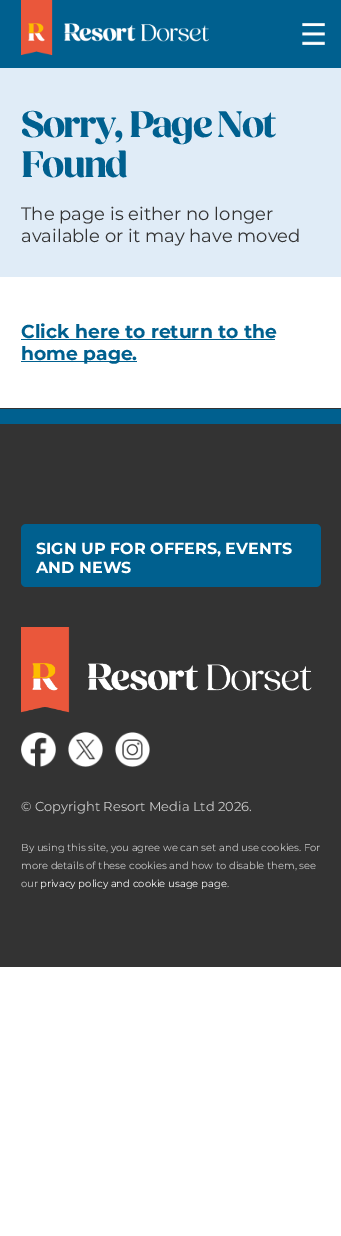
%!PS-Adobe-3.0
%%BoundingBox: 0 0 341 1236
%%LanguageLevel: 3
%%Pages: 1
%%EndComments
%%BeginProlog
/m { moveto } bind def
/f { fill } bind def
/fn { [ exch dup neg 0 0 3 -1 roll 0 0 ] selectfont } def
/tx { moveto show } def
/bx { rectfill } def
/rr { 5 dict begin { /r /h /w /y /x } { exch def } forall
  x r add y moveto x w add y 2 copy h add r arct x w add y h add x 1 index r arct
  x y h add x y r arct x y 2 copy exch w add exch r arct closepath end } def
/im { 5 dict begin { /h /w /y /x /name } { exch def } forall
  gsave x y translate w h scale
  w h 8 [w 0 0 h 0 0] name (r) file false 3 colorimage grestore end } def
%%EndProlog
%%BeginSetup
<< /PageSize [341 1236] >> setpagedevice
%%EndSetup
%%Page: 1 1
0 1236 translate 1 -1 scale
4 setmiterlimit
1 setgray
0 0 341 1236 bx
0 0.376 0.561 setrgbcolor
0 0 341 68 bx
(image0.raw) 21 0 188 56 im
(image1.raw) 302 23 23 22 im
0.878 0.925 0.969 setrgbcolor
0 68 341 209 bx
/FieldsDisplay-Bold 38 fn
0 0.376 0.561 setrgbcolor
21 137 m -1.6 0 (Sorry, Page Not) ashow
21 177 m -1.6 0 (Found) ashow
/Montserrat-Regular 18 fn
0.2 setgray
(The page is either no longer) 21 220 tx
(available or it may have moved) 21 242 tx
/Montserrat-Bold 18.75 fn
0 0.376 0.561 setrgbcolor
(Click here to return to the) 21 338 tx
21 339 254 1 bx
21 361 116 1 bx
(home page.) 21 360 tx
0 409 341 15 bx
0.2 setgray
0 408 341 1 bx
0 424 341 543 bx
0 0.376 0.561 setrgbcolor
21 524 300 63 5 rr f
/Montserrat-Bold 16 fn
1 setgray
(SIGN UP FOR OFFERS, EVENTS) 36 554 tx
(AND NEWS) 36 573 tx
(image2.raw) 21 627 291 86 im
(image3.raw) 21 732 35 35 im
(image4.raw) 68 732 35 35 im
(image5.raw) 115 732 35 35 im
/Montserrat-Regular 13 fn
0.8 setgray
(© Copyright Resort Media Ltd 2026.) 21 811 tx
/Montserrat-Regular 10 fn
(By using this site, you agree we can set and use cookies. For) 21 851 tx
(more details of these cookies and how to disable them, see) 21 869 tx
(our) 21 887 tx
1 setgray
(privacy policy and cookie usage page) 40 887 tx
0.8 setgray
(.) 227 887 tx
showpage
%%EOF
